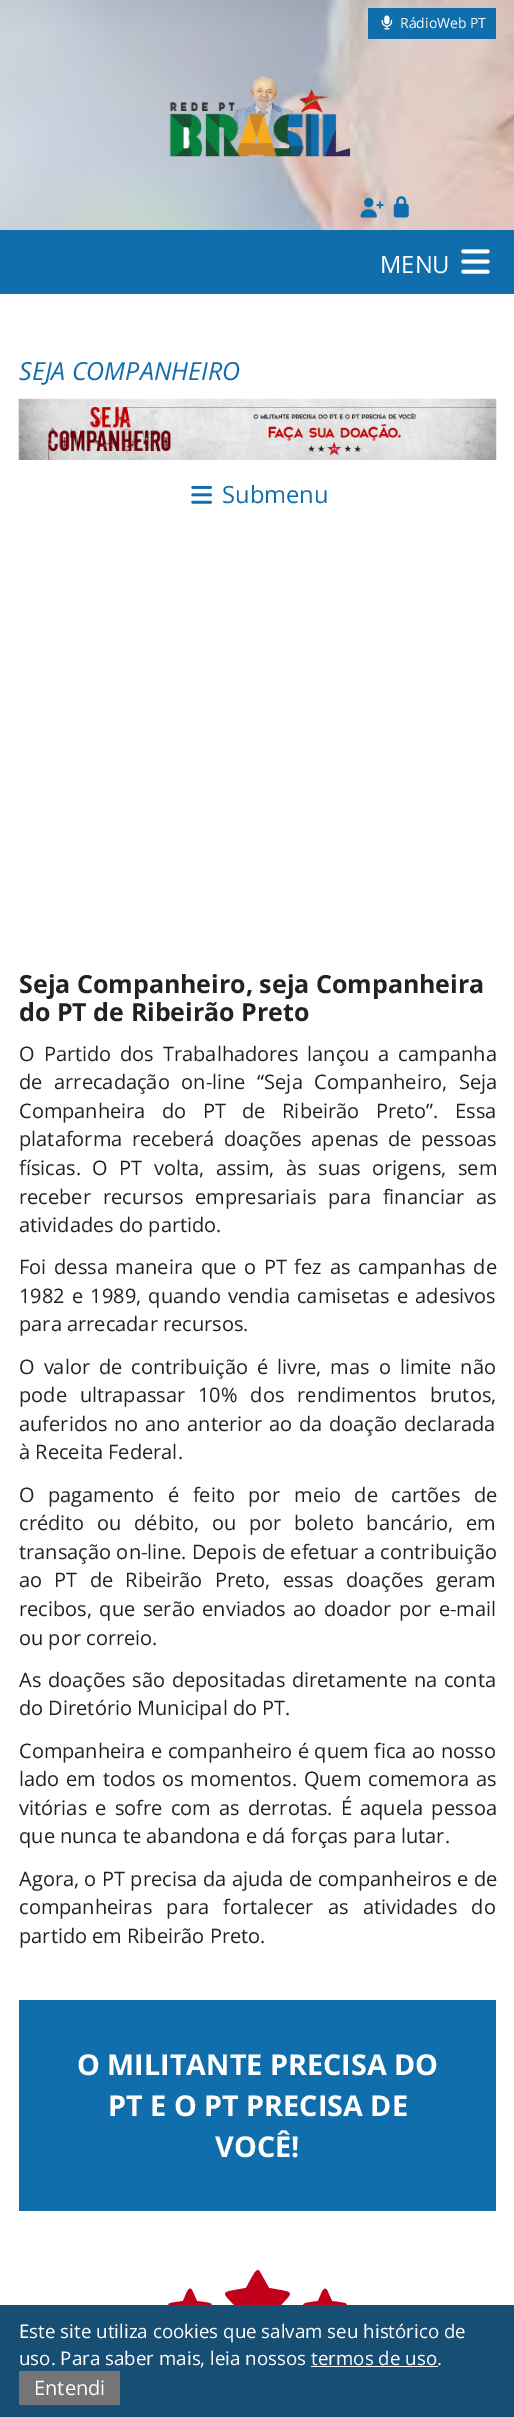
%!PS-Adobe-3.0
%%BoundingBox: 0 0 514 2417
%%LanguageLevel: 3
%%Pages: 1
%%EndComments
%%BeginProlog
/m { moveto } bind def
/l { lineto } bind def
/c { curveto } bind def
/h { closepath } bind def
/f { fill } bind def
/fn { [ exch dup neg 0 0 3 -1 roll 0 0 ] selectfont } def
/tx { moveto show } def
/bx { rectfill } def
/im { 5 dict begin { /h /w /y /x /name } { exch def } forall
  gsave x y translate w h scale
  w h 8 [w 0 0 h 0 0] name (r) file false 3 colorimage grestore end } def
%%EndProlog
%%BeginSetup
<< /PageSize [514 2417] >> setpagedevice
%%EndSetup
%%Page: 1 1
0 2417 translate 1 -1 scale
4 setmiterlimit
1 setgray
0 0 514 2417 bx
(image0.raw) 0 0 514 230 im
0.067 0.431 0.675 setrgbcolor
368 8 128 31 bx
(image1.raw) 381 15 12 15 im
/OpenSans-Regular 14 fn
1 setgray
(RádioWeb PT) 400 28 tx
(image2.raw) 169 75 182 82 im
(image3.raw) 360 197 24 21 im
(image4.raw) 393 196 16 22 im
0.067 0.431 0.675 setrgbcolor
0 230 514 64 bx
/OpenSans-Regular 23.75 fn
1 setgray
(MENU) 380 273 tx
(image5.raw) 461 249 29 25 im
/OpenSans-Italic 25 fn
0.067 0.431 0.675 setrgbcolor
(SEJA COMPANHEIRO) 19 380 tx
(image6.raw) 18 398 479 62 im
(image7.raw) 191 485 21 19 im
/OpenSans-Regular 23.75 fn
(Submenu) 222 503 tx
/OpenSans-Bold 25 fn
0.133 setgray
(Seja Companheiro, seja Companheira) 19 993 tx
(do PT de Ribeirão Preto) 19 1021 tx
/OpenSans-Regular 20 fn
19 1061 m 3.75 0 32 (O Partido dos Trabalhadores lançou a campanha) widthshow
19 1089 m 6.5 0 32 (de arrecadação on-line “Seja Companheiro, Seja) widthshow
19 1118 m 11.25 0 32 (Companheira do PT de Ribeirão Preto”. Essa) widthshow
19 1146 m 4.25 0 32 (plataforma receberá doações apenas de pessoas) widthshow
19 1175 m 6.25 0 32 (físicas. O PT volta, assim, às suas origens, sem) widthshow
19 1204 m 6.75 0 32 (receber recursos empresariais para financiar as) widthshow
(atividades do partido.) 19 1232 tx
19 1274 m 2.5 0 32 (Foi dessa maneira que o PT fez as campanhas de) widthshow
19 1303 m 2 0 32 (1982 e 1989, quando vendia camisetas e adesivos) widthshow
(para arrecadar recursos.) 19 1331 tx
19 1374 m 3.75 0 32 (O valor de contribuição é livre, mas o limite não) widthshow
19 1402 m 7.75 0 32 (pode ultrapassar 10% dos rendimentos brutos,) widthshow
19 1431 m 1.5 0 32 (auferidos no ano anterior ao da doação declarada) widthshow
(à Receita Federal.) 19 1459 tx
19 1502 m 8.25 0 32 (O pagamento é feito por meio de cartões de) widthshow
19 1530 m 7.5 0 32 (crédito ou débito, ou por boleto bancário, em) widthshow
19 1559 m 0.25 0 32 (transação on-line. Depois de efetuar a contribuição) widthshow
19 1587 m 7 0 32 (ao PT de Ribeirão Preto, essas doações geram) widthshow
19 1616 m 2.25 0 32 (recibos, que serão enviados ao doador por e-mail) widthshow
(ou por correio.) 19 1645 tx
19 1687 m 1.5 0 32 (As doações são depositadas diretamente na conta) widthshow
(do Diretório Municipal do PT.) 19 1715 tx
19 1758 m 0.25 0 32 (Companheira e companheiro é quem fica ao nosso) widthshow
19 1786 m 1.5 0 32 (lado em todos os momentos. Quem comemora as) widthshow
19 1815 m 3 0 32 (vitórias e sofre com as derrotas. É aquela pessoa) widthshow
(que nunca te abandona e dá forças para lutar.) 19 1843 tx
19 1886 m 0.25 0 32 (Agora, o PT precisa da ajuda de companheiros e de) widthshow
19 1914 m 9 0 32 (companheiras para fortalecer as atividades do) widthshow
(partido em Ribeirão Preto.) 19 1943 tx
0.067 0.431 0.675 setrgbcolor
19 2000 477 211 bx
/OpenSans-Bold 28.75 fn
1 setgray
(O MILITANTE PRECISA DO) 77 2075 tx
(PT E O PT PRECISA DE) 108 2116 tx
(VOCÊ!) 215 2157 tx
0.757 0 0.098 setrgbcolor
192 2290 m 189 2286 187 2292 186 2294 c 183 2301 l 164 2304 165 2302 178 2315 c 175 2334 173 2332 190 2324 c 207 2332 205 2334 202 2315 c 215 2302 216 2304 197 2301 c h f
260 2272 m 257 2266 253 2276 252 2277 c 246 2288 l 219 2293 220 2290 239 2310 c 235 2337 233 2335 258 2323 c 282 2335 280 2337 276 2310 c 295 2290 296 2293 269 2288 c h f
327 2290 m 324 2286 322 2292 321 2294 c 318 2301 l 299 2304 300 2302 313 2315 c 310 2334 308 2332 325 2324 c 342 2332 340 2334 337 2315 c 350 2302 351 2304 332 2301 c h f
0.09 0.306 0.455 setrgbcolor
0 2305 514 112 bx
/OpenSans-Regular 18.75 fn
1 setgray
(Este site utiliza cookies que salvam seu histórico de) 19 2338 tx
(uso. Para saber mais, leia nossos termos de uso.) 19 2365 tx
311 2366 127 1 bx
0.459 setgray
19 2371 101 34 bx
/OpenSans-Regular 20 fn
1 setgray
(Entendi) 34 2395 tx
showpage
%%EOF
